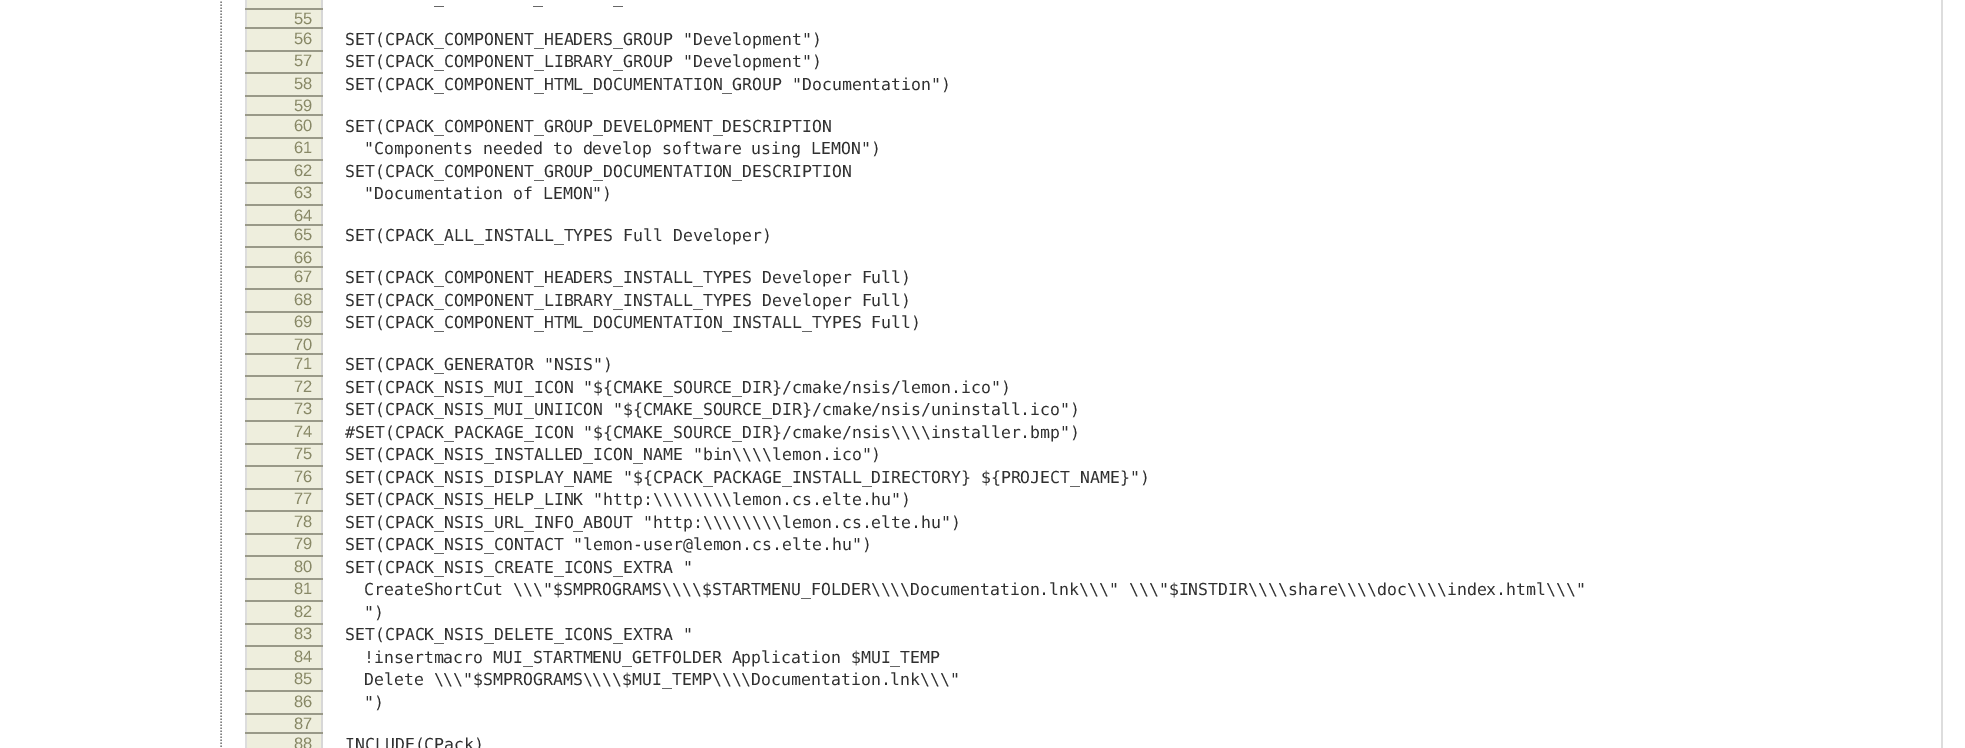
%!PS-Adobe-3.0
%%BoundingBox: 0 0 1965 748
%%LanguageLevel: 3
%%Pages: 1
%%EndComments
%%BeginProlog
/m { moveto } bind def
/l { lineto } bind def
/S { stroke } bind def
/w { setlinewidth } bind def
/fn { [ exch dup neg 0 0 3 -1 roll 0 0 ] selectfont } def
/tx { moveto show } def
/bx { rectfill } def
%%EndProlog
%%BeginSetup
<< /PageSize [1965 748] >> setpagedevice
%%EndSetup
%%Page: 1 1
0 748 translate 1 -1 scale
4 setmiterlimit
1 setgray
0 0 1965 748 bx
0.502 setgray
1.5 w
[1.5 1.5] 0 setdash
221 -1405.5 m 221 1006.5 l S
0.867 setgray
1941 0 2 748 bx
245 0 2 748 bx
0.933 0.933 0.867 setrgbcolor
247 0 74 8 bx
0.843 setgray
321 0 2 748 bx
0.6 0.6 0.533 setrgbcolor
245 8 78 2 bx
/DejaVuSansMono-Regular 16.5 fn
0.188 setgray
(_) 434 3 tx
(_) 533 3 tx
(_) 613 3 tx
0.933 0.933 0.867 setrgbcolor
247 10 74 17 bx
0.6 0.6 0.533 setrgbcolor
245 27 78 2 bx
/LiberationSans-Regular 16.5 fn
0.533 0.533 0.4 setrgbcolor
(55) 294 24 tx
0.933 0.933 0.867 setrgbcolor
247 29 74 21 bx
0.6 0.6 0.533 setrgbcolor
245 50 78 2 bx
0.533 0.533 0.4 setrgbcolor
(56) 294 44 tx
/DejaVuSansMono-Regular 16.5 fn
0.188 setgray
(SET\(CPACK_COMPONENT_HEADERS_GROUP "Development"\)) 345 45 tx
0.933 0.933 0.867 setrgbcolor
247 52 74 20 bx
0.6 0.6 0.533 setrgbcolor
245 72 78 2 bx
/LiberationSans-Regular 16.5 fn
0.533 0.533 0.4 setrgbcolor
(57) 294 66 tx
/DejaVuSansMono-Regular 16.5 fn
0.188 setgray
(SET\(CPACK_COMPONENT_LIBRARY_GROUP "Development"\)) 345 67 tx
0.933 0.933 0.867 setrgbcolor
247 74 74 21 bx
0.6 0.6 0.533 setrgbcolor
245 95 78 2 bx
/LiberationSans-Regular 16.5 fn
0.533 0.533 0.4 setrgbcolor
(58) 294 89 tx
/DejaVuSansMono-Regular 16.5 fn
0.188 setgray
(SET\(CPACK_COMPONENT_HTML_DOCUMENTATION_GROUP "Documentation"\)) 345 90 tx
0.933 0.933 0.867 setrgbcolor
247 97 74 17 bx
0.6 0.6 0.533 setrgbcolor
245 114 78 2 bx
/LiberationSans-Regular 16.5 fn
0.533 0.533 0.4 setrgbcolor
(59) 294 111 tx
0.933 0.933 0.867 setrgbcolor
247 116 74 21 bx
0.6 0.6 0.533 setrgbcolor
245 137 78 2 bx
0.533 0.533 0.4 setrgbcolor
(60) 294 131 tx
/DejaVuSansMono-Regular 16.5 fn
0.188 setgray
(SET\(CPACK_COMPONENT_GROUP_DEVELOPMENT_DESCRIPTION) 345 132 tx
0.933 0.933 0.867 setrgbcolor
247 139 74 20 bx
0.6 0.6 0.533 setrgbcolor
245 159 78 2 bx
/LiberationSans-Regular 16.5 fn
0.533 0.533 0.4 setrgbcolor
(61) 294 153 tx
/DejaVuSansMono-Regular 16.5 fn
0.188 setgray
("Components needed to develop software using LEMON"\)) 364 154 tx
0.933 0.933 0.867 setrgbcolor
247 161 74 21 bx
0.6 0.6 0.533 setrgbcolor
245 182 78 2 bx
/LiberationSans-Regular 16.5 fn
0.533 0.533 0.4 setrgbcolor
(62) 294 176 tx
/DejaVuSansMono-Regular 16.5 fn
0.188 setgray
(SET\(CPACK_COMPONENT_GROUP_DOCUMENTATION_DESCRIPTION) 345 177 tx
0.933 0.933 0.867 setrgbcolor
247 184 74 20 bx
0.6 0.6 0.533 setrgbcolor
245 204 78 2 bx
/LiberationSans-Regular 16.5 fn
0.533 0.533 0.4 setrgbcolor
(63) 294 198 tx
/DejaVuSansMono-Regular 16.5 fn
0.188 setgray
("Documentation of LEMON"\)) 364 199 tx
0.933 0.933 0.867 setrgbcolor
247 206 74 18 bx
0.6 0.6 0.533 setrgbcolor
245 224 78 2 bx
/LiberationSans-Regular 16.5 fn
0.533 0.533 0.4 setrgbcolor
(64) 294 221 tx
0.933 0.933 0.867 setrgbcolor
247 226 74 20 bx
0.6 0.6 0.533 setrgbcolor
245 246 78 2 bx
0.533 0.533 0.4 setrgbcolor
(65) 294 240 tx
/DejaVuSansMono-Regular 16.5 fn
0.188 setgray
(SET\(CPACK_ALL_INSTALL_TYPES Full Developer\)) 345 241 tx
0.933 0.933 0.867 setrgbcolor
247 248 74 18 bx
0.6 0.6 0.533 setrgbcolor
245 266 78 2 bx
/LiberationSans-Regular 16.5 fn
0.533 0.533 0.4 setrgbcolor
(66) 294 263 tx
0.933 0.933 0.867 setrgbcolor
247 268 74 20 bx
0.6 0.6 0.533 setrgbcolor
245 288 78 2 bx
0.533 0.533 0.4 setrgbcolor
(67) 294 282 tx
/DejaVuSansMono-Regular 16.5 fn
0.188 setgray
(SET\(CPACK_COMPONENT_HEADERS_INSTALL_TYPES Developer Full\)) 345 283 tx
0.933 0.933 0.867 setrgbcolor
247 290 74 21 bx
0.6 0.6 0.533 setrgbcolor
245 311 78 2 bx
/LiberationSans-Regular 16.5 fn
0.533 0.533 0.4 setrgbcolor
(68) 294 305 tx
/DejaVuSansMono-Regular 16.5 fn
0.188 setgray
(SET\(CPACK_COMPONENT_LIBRARY_INSTALL_TYPES Developer Full\)) 345 306 tx
0.933 0.933 0.867 setrgbcolor
247 313 74 20 bx
0.6 0.6 0.533 setrgbcolor
245 333 78 2 bx
/LiberationSans-Regular 16.5 fn
0.533 0.533 0.4 setrgbcolor
(69) 294 327 tx
/DejaVuSansMono-Regular 16.5 fn
0.188 setgray
(SET\(CPACK_COMPONENT_HTML_DOCUMENTATION_INSTALL_TYPES Full\)) 345 328 tx
0.933 0.933 0.867 setrgbcolor
247 335 74 18 bx
0.6 0.6 0.533 setrgbcolor
245 353 78 2 bx
/LiberationSans-Regular 16.5 fn
0.533 0.533 0.4 setrgbcolor
(70) 294 350 tx
0.933 0.933 0.867 setrgbcolor
247 355 74 20 bx
0.6 0.6 0.533 setrgbcolor
245 375 78 2 bx
0.533 0.533 0.4 setrgbcolor
(71) 294 369 tx
/DejaVuSansMono-Regular 16.5 fn
0.188 setgray
(SET\(CPACK_GENERATOR "NSIS"\)) 345 370 tx
0.933 0.933 0.867 setrgbcolor
247 377 74 21 bx
0.6 0.6 0.533 setrgbcolor
245 398 78 2 bx
/LiberationSans-Regular 16.5 fn
0.533 0.533 0.4 setrgbcolor
(72) 294 392 tx
/DejaVuSansMono-Regular 16.5 fn
0.188 setgray
(SET\(CPACK_NSIS_MUI_ICON "${CMAKE_SOURCE_DIR}/cmake/nsis/lemon.ico"\)) 345 393 tx
0.933 0.933 0.867 setrgbcolor
247 400 74 20 bx
0.6 0.6 0.533 setrgbcolor
245 420 78 2 bx
/LiberationSans-Regular 16.5 fn
0.533 0.533 0.4 setrgbcolor
(73) 294 414 tx
/DejaVuSansMono-Regular 16.5 fn
0.188 setgray
(SET\(CPACK_NSIS_MUI_UNIICON "${CMAKE_SOURCE_DIR}/cmake/nsis/uninstall.ico"\)) 345 415 tx
0.933 0.933 0.867 setrgbcolor
247 422 74 21 bx
0.6 0.6 0.533 setrgbcolor
245 443 78 2 bx
/LiberationSans-Regular 16.5 fn
0.533 0.533 0.4 setrgbcolor
(74) 294 437 tx
/DejaVuSansMono-Regular 16.5 fn
0.188 setgray
(#SET\(CPACK_PACKAGE_ICON "${CMAKE_SOURCE_DIR}/cmake/nsis\\\\\\\\installer.bmp"\)) 345 438 tx
0.933 0.933 0.867 setrgbcolor
247 445 74 20 bx
0.6 0.6 0.533 setrgbcolor
245 465 78 2 bx
/LiberationSans-Regular 16.5 fn
0.533 0.533 0.4 setrgbcolor
(75) 294 459 tx
/DejaVuSansMono-Regular 16.5 fn
0.188 setgray
(SET\(CPACK_NSIS_INSTALLED_ICON_NAME "bin\\\\\\\\lemon.ico"\)) 345 460 tx
0.933 0.933 0.867 setrgbcolor
247 467 74 21 bx
0.6 0.6 0.533 setrgbcolor
245 488 78 2 bx
/LiberationSans-Regular 16.5 fn
0.533 0.533 0.4 setrgbcolor
(76) 294 482 tx
/DejaVuSansMono-Regular 16.5 fn
0.188 setgray
(SET\(CPACK_NSIS_DISPLAY_NAME "${CPACK_PACKAGE_INSTALL_DIRECTORY} ${PROJECT_NAME}"\)) 345 483 tx
0.933 0.933 0.867 setrgbcolor
247 490 74 20 bx
0.6 0.6 0.533 setrgbcolor
245 510 78 2 bx
/LiberationSans-Regular 16.5 fn
0.533 0.533 0.4 setrgbcolor
(77) 294 504 tx
/DejaVuSansMono-Regular 16.5 fn
0.188 setgray
(SET\(CPACK_NSIS_HELP_LINK "http:\\\\\\\\\\\\\\\\lemon.cs.elte.hu"\)) 345 505 tx
0.933 0.933 0.867 setrgbcolor
247 512 74 21 bx
0.6 0.6 0.533 setrgbcolor
245 533 78 2 bx
/LiberationSans-Regular 16.5 fn
0.533 0.533 0.4 setrgbcolor
(78) 294 527 tx
/DejaVuSansMono-Regular 16.5 fn
0.188 setgray
(SET\(CPACK_NSIS_URL_INFO_ABOUT "http:\\\\\\\\\\\\\\\\lemon.cs.elte.hu"\)) 345 528 tx
0.933 0.933 0.867 setrgbcolor
247 535 74 20 bx
0.6 0.6 0.533 setrgbcolor
245 555 78 2 bx
/LiberationSans-Regular 16.5 fn
0.533 0.533 0.4 setrgbcolor
(79) 294 549 tx
/DejaVuSansMono-Regular 16.5 fn
0.188 setgray
(SET\(CPACK_NSIS_CONTACT "lemon-user@lemon.cs.elte.hu"\)) 345 550 tx
0.933 0.933 0.867 setrgbcolor
247 557 74 21 bx
0.6 0.6 0.533 setrgbcolor
245 578 78 2 bx
/LiberationSans-Regular 16.5 fn
0.533 0.533 0.4 setrgbcolor
(80) 294 572 tx
/DejaVuSansMono-Regular 16.5 fn
0.188 setgray
(SET\(CPACK_NSIS_CREATE_ICONS_EXTRA ") 345 573 tx
0.933 0.933 0.867 setrgbcolor
247 580 74 20 bx
0.6 0.6 0.533 setrgbcolor
245 600 78 2 bx
/LiberationSans-Regular 16.5 fn
0.533 0.533 0.4 setrgbcolor
(81) 294 594 tx
/DejaVuSansMono-Regular 16.5 fn
0.188 setgray
(CreateShortCut \\\\\\"$SMPROGRAMS\\\\\\\\$STARTMENU_FOLDER\\\\\\\\Documentation.lnk\\\\\\" \\\\\\"$INSTDIR\\\\\\\\share\\\\\\\\doc\\\\\\\\index.html\\\\\\") 364 595 tx
0.933 0.933 0.867 setrgbcolor
247 602 74 21 bx
0.6 0.6 0.533 setrgbcolor
245 623 78 2 bx
/LiberationSans-Regular 16.5 fn
0.533 0.533 0.4 setrgbcolor
(82) 294 617 tx
/DejaVuSansMono-Regular 16.5 fn
0.188 setgray
("\)) 364 618 tx
0.933 0.933 0.867 setrgbcolor
247 625 74 20 bx
0.6 0.6 0.533 setrgbcolor
245 645 78 2 bx
/LiberationSans-Regular 16.5 fn
0.533 0.533 0.4 setrgbcolor
(83) 294 639 tx
/DejaVuSansMono-Regular 16.5 fn
0.188 setgray
(SET\(CPACK_NSIS_DELETE_ICONS_EXTRA ") 345 640 tx
0.933 0.933 0.867 setrgbcolor
247 647 74 21 bx
0.6 0.6 0.533 setrgbcolor
245 668 78 2 bx
/LiberationSans-Regular 16.5 fn
0.533 0.533 0.4 setrgbcolor
(84) 294 662 tx
/DejaVuSansMono-Regular 16.5 fn
0.188 setgray
(!insertmacro MUI_STARTMENU_GETFOLDER Application $MUI_TEMP) 364 663 tx
0.933 0.933 0.867 setrgbcolor
247 670 74 20 bx
0.6 0.6 0.533 setrgbcolor
245 690 78 2 bx
/LiberationSans-Regular 16.5 fn
0.533 0.533 0.4 setrgbcolor
(85) 294 684 tx
/DejaVuSansMono-Regular 16.5 fn
0.188 setgray
(Delete \\\\\\"$SMPROGRAMS\\\\\\\\$MUI_TEMP\\\\\\\\Documentation.lnk\\\\\\") 364 685 tx
0.933 0.933 0.867 setrgbcolor
247 692 74 21 bx
0.6 0.6 0.533 setrgbcolor
245 713 78 2 bx
/LiberationSans-Regular 16.5 fn
0.533 0.533 0.4 setrgbcolor
(86) 294 707 tx
/DejaVuSansMono-Regular 16.5 fn
0.188 setgray
("\)) 364 708 tx
0.933 0.933 0.867 setrgbcolor
247 715 74 17 bx
0.6 0.6 0.533 setrgbcolor
245 732 78 2 bx
/LiberationSans-Regular 16.5 fn
0.533 0.533 0.4 setrgbcolor
(87) 294 729 tx
0.933 0.933 0.867 setrgbcolor
247 734 74 14 bx
0.533 0.533 0.4 setrgbcolor
(88) 294 749 tx
/DejaVuSansMono-Regular 16.5 fn
0.188 setgray
(INCLUDE\(CPack\)) 345 750 tx
showpage
%%EOF
